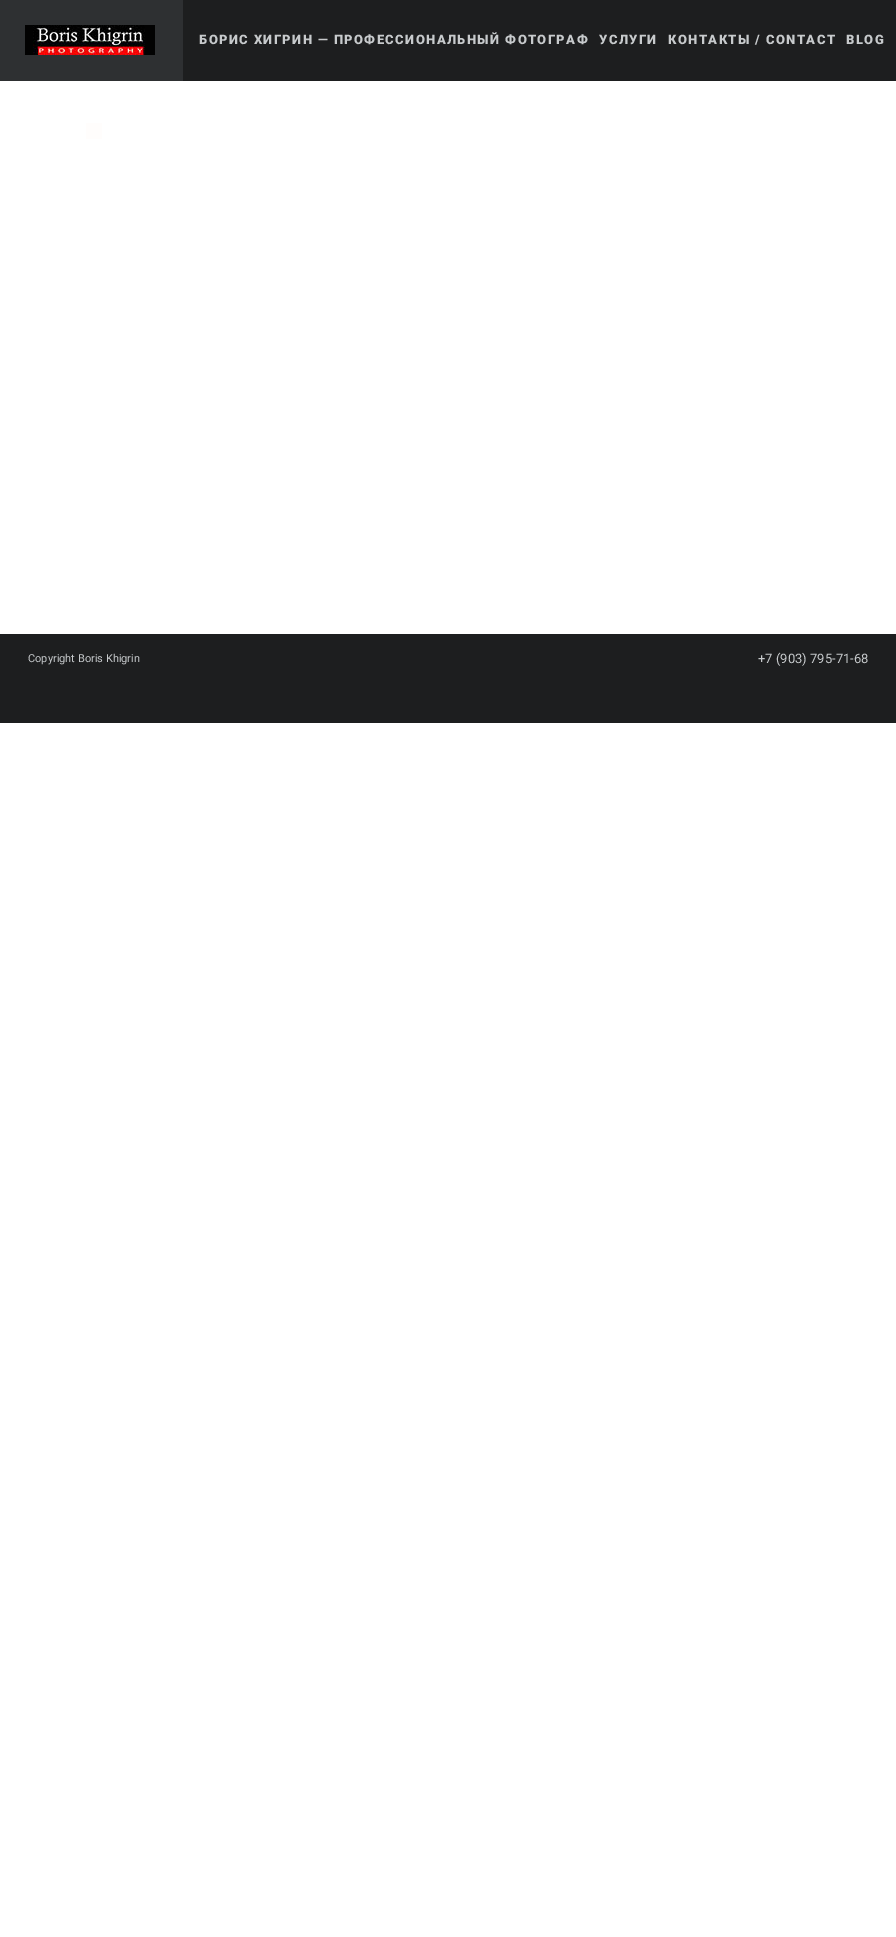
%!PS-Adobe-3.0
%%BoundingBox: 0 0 896 1937
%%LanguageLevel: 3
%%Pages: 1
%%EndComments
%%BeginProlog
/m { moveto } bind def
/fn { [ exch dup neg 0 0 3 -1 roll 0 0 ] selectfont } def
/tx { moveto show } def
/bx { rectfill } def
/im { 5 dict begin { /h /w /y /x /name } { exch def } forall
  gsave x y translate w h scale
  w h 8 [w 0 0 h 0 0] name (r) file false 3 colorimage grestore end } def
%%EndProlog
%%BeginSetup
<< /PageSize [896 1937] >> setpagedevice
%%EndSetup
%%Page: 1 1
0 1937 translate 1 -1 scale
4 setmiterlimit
1 setgray
0 0 896 1937 bx
0.114 0.118 0.122 setrgbcolor
183 0 713 81 bx
0.18 0.188 0.196 setrgbcolor
0 0 183 81 bx
(image0.raw) 25 25 130 30 im
/Roboto-Black 13 fn
0.78 0.792 0.8 setrgbcolor
199 44 m 1.4 0 (БОРИС ХИГРИН — ПРОФЕССИОНАЛЬНЫЙ ФОТОГРАФ) ashow
599 44 m 1.4 0 (УСЛУГИ) ashow
668 44 m 1.4 0 (КОНТАКТЫ / CONTACT) ashow
846 44 m 1.4 0 (BLOG) ashow
1 0.992 0.988 setrgbcolor
86 123 16 16 bx
0.114 0.118 0.122 setrgbcolor
0 634 896 89 bx
/Roboto-Regular 11 fn
0.78 0.792 0.8 setrgbcolor
(Copyright Boris Khigrin) 28 662 tx
/Roboto-Regular 13 fn
(+7 \(903\) 795-71-68) 758 663 tx
showpage
%%EOF
